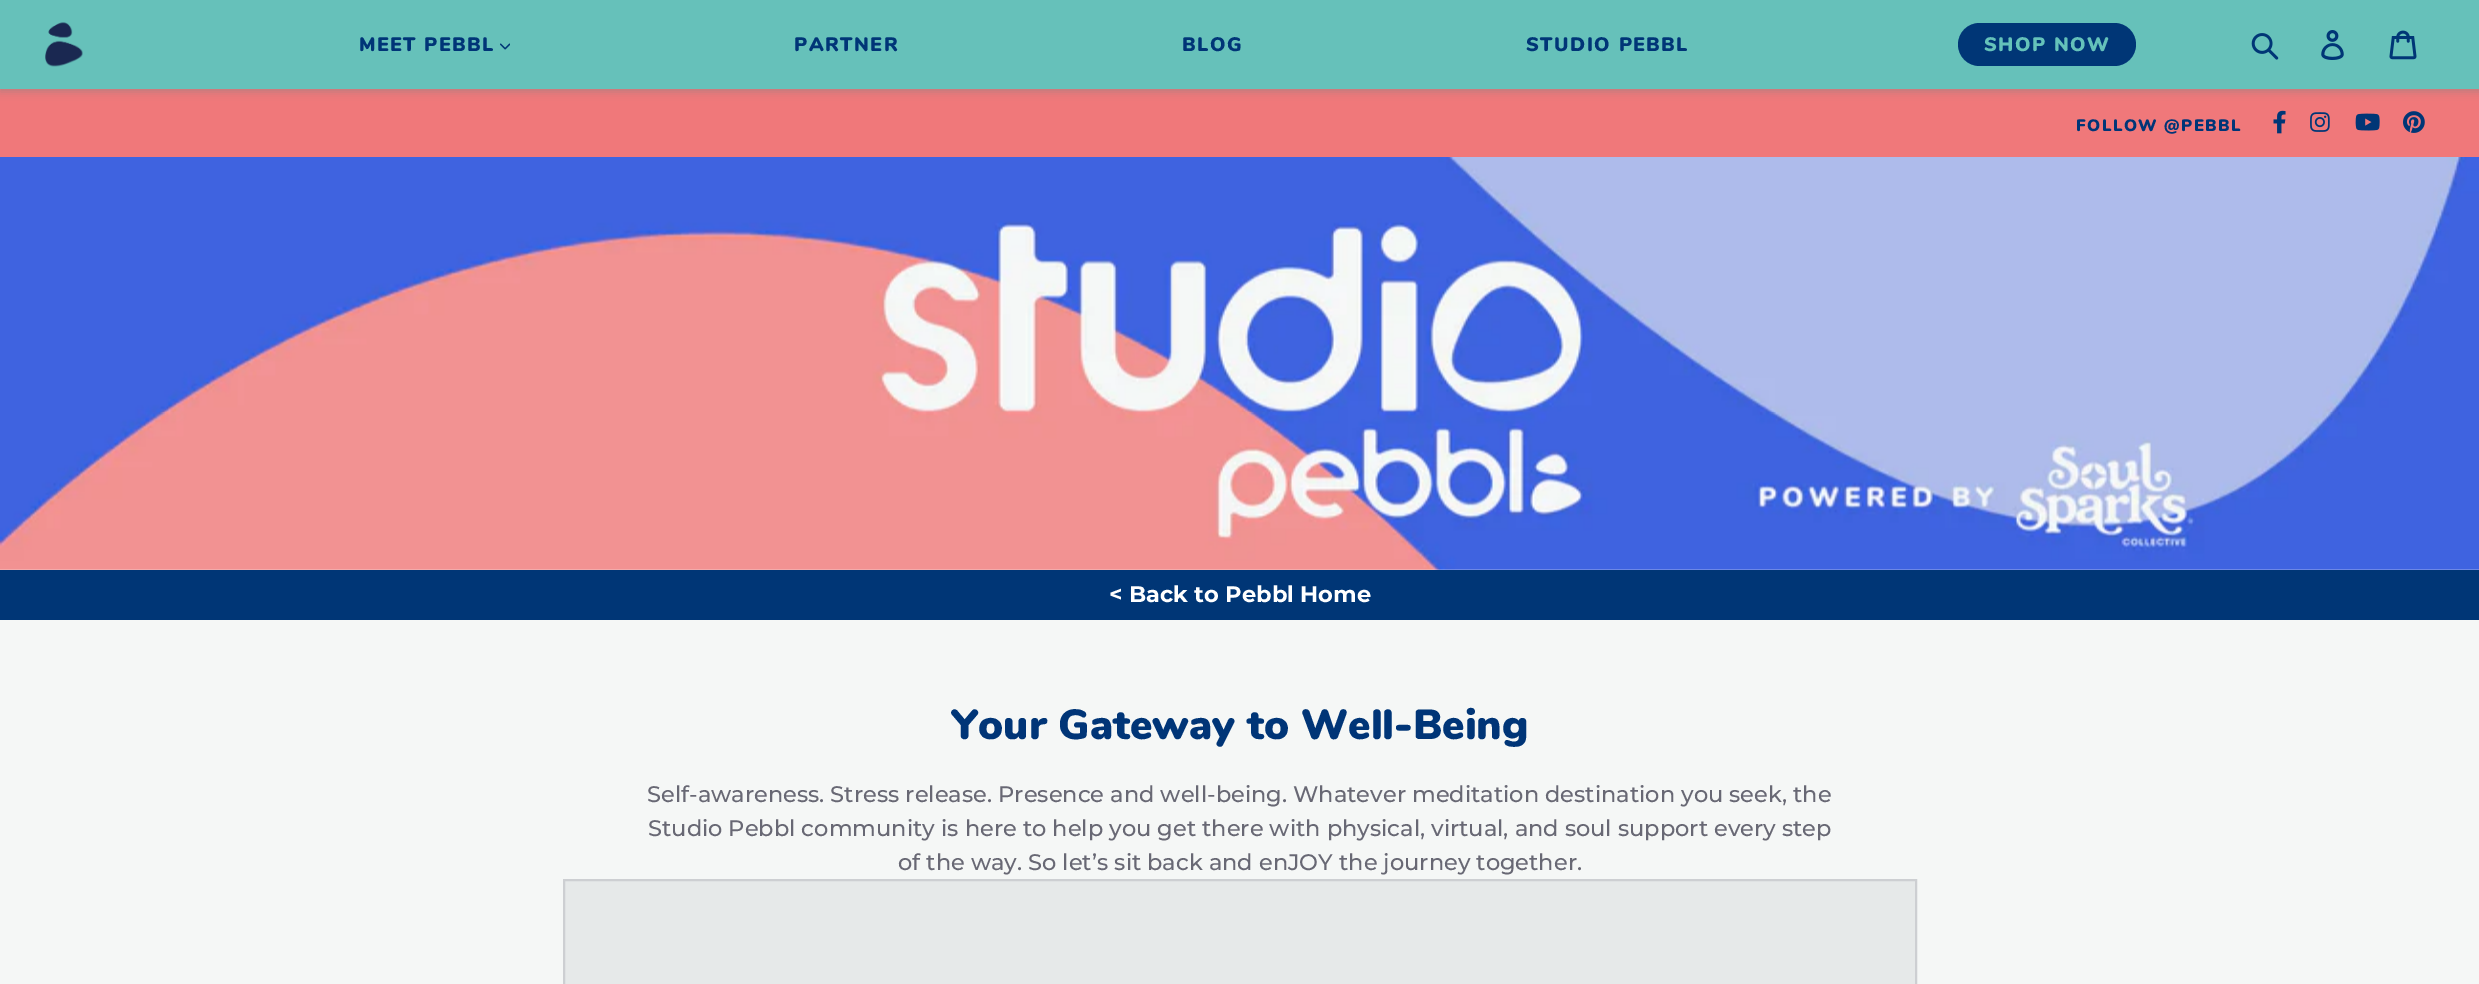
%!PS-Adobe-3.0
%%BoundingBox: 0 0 2479 984
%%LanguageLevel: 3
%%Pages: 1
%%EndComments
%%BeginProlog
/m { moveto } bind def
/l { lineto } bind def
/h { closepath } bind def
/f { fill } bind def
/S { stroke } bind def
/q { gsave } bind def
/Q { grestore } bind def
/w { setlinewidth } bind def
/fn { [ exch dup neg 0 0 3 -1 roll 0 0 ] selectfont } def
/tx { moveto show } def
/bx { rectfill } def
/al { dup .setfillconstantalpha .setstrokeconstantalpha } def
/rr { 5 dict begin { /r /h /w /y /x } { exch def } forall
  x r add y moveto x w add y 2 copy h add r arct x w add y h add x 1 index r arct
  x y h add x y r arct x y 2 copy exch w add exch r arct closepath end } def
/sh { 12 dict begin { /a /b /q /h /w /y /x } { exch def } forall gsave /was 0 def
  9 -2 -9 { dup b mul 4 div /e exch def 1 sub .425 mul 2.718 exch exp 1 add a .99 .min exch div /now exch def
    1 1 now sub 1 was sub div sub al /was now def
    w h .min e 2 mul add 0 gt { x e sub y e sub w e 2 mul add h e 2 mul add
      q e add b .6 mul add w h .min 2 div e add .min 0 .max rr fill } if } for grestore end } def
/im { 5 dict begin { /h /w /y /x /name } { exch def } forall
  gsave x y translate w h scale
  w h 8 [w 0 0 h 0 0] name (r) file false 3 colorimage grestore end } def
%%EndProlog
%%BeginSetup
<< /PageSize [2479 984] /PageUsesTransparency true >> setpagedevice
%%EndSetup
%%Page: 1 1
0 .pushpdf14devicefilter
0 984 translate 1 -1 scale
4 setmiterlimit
0.961 0.969 0.965 setrgbcolor
0 0 2479 984 bx
0.941 0.471 0.478 setrgbcolor
0 89 2479 68 bx
0.518 setgray
0 3 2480 89 0 4 0.48 sh
0.4 0.757 0.729 setrgbcolor
0 0 2479 89 bx
(image0.raw) 45 22 38 45 im
/Nunito-Black 19.5 fn
0 0.208 0.467 setrgbcolor
359 51 m 1.5 0 (MEET PEBBL) ashow
(image1.raw) 500 43 10 7 im
794 51 m 1.5 0 (PARTNER) ashow
1182 51 m 1.5 0 (BLOG) ashow
1526 51 m 1.5 0 (STUDIO PEBBL) ashow
0 0.212 0.463 setrgbcolor
1958 23 178 43 21.5 rr f
0.396 0.761 0.729 setrgbcolor
1984 51 m 1.5 0 (SHOP NOW) ashow
(image2.raw) 2251 33 28 27 im
(image3.raw) 2321 30 23 30 im
(image4.raw) 2389 30 28 30 im
/Nunito-Black 16.5 fn
0 0.208 0.467 setrgbcolor
2076 131 m 1.5 0 (FOLLOW @PEBBL) ashow
(image5.raw) 2273 110 13 24 im
(image6.raw) 2310 112 20 20 im
(image7.raw) 2355 113 25 18 im
(image8.raw) 2403 111 22 22 im
(image9.raw) 0 157 2479 413 im
0 0.212 0.463 setrgbcolor
0 570 2479 50 bx
/Montserrat-Bold 22.5 fn
1 setgray
(< Back to Pebbl Home) 1109 602 tx
/Nunito-Black 42 fn
0 0.208 0.467 setrgbcolor
(Your Gateway to Well-Being) 951 739 tx
/Montserrat-Medium 22.5 fn
0.408 0.408 0.455 setrgbcolor
(Self-awareness. Stress release. Presence and well-being. Whatever meditation destination you seek, the) 647 802 tx
(Studio Pebbl community is here to help you get there with physical, virtual, and soul support every step) 648 836 tx
(of the way. So let’s sit back and enJOY the journey together.) 898 870 tx
0.902 0.914 0.914 setrgbcolor
564 880 m 1916 880 l 1916 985 l 564 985 l h q f Q
0.804 0.812 0.824 setrgbcolor
2 w
S
.poppdf14devicefilter showpage
%%EOF
